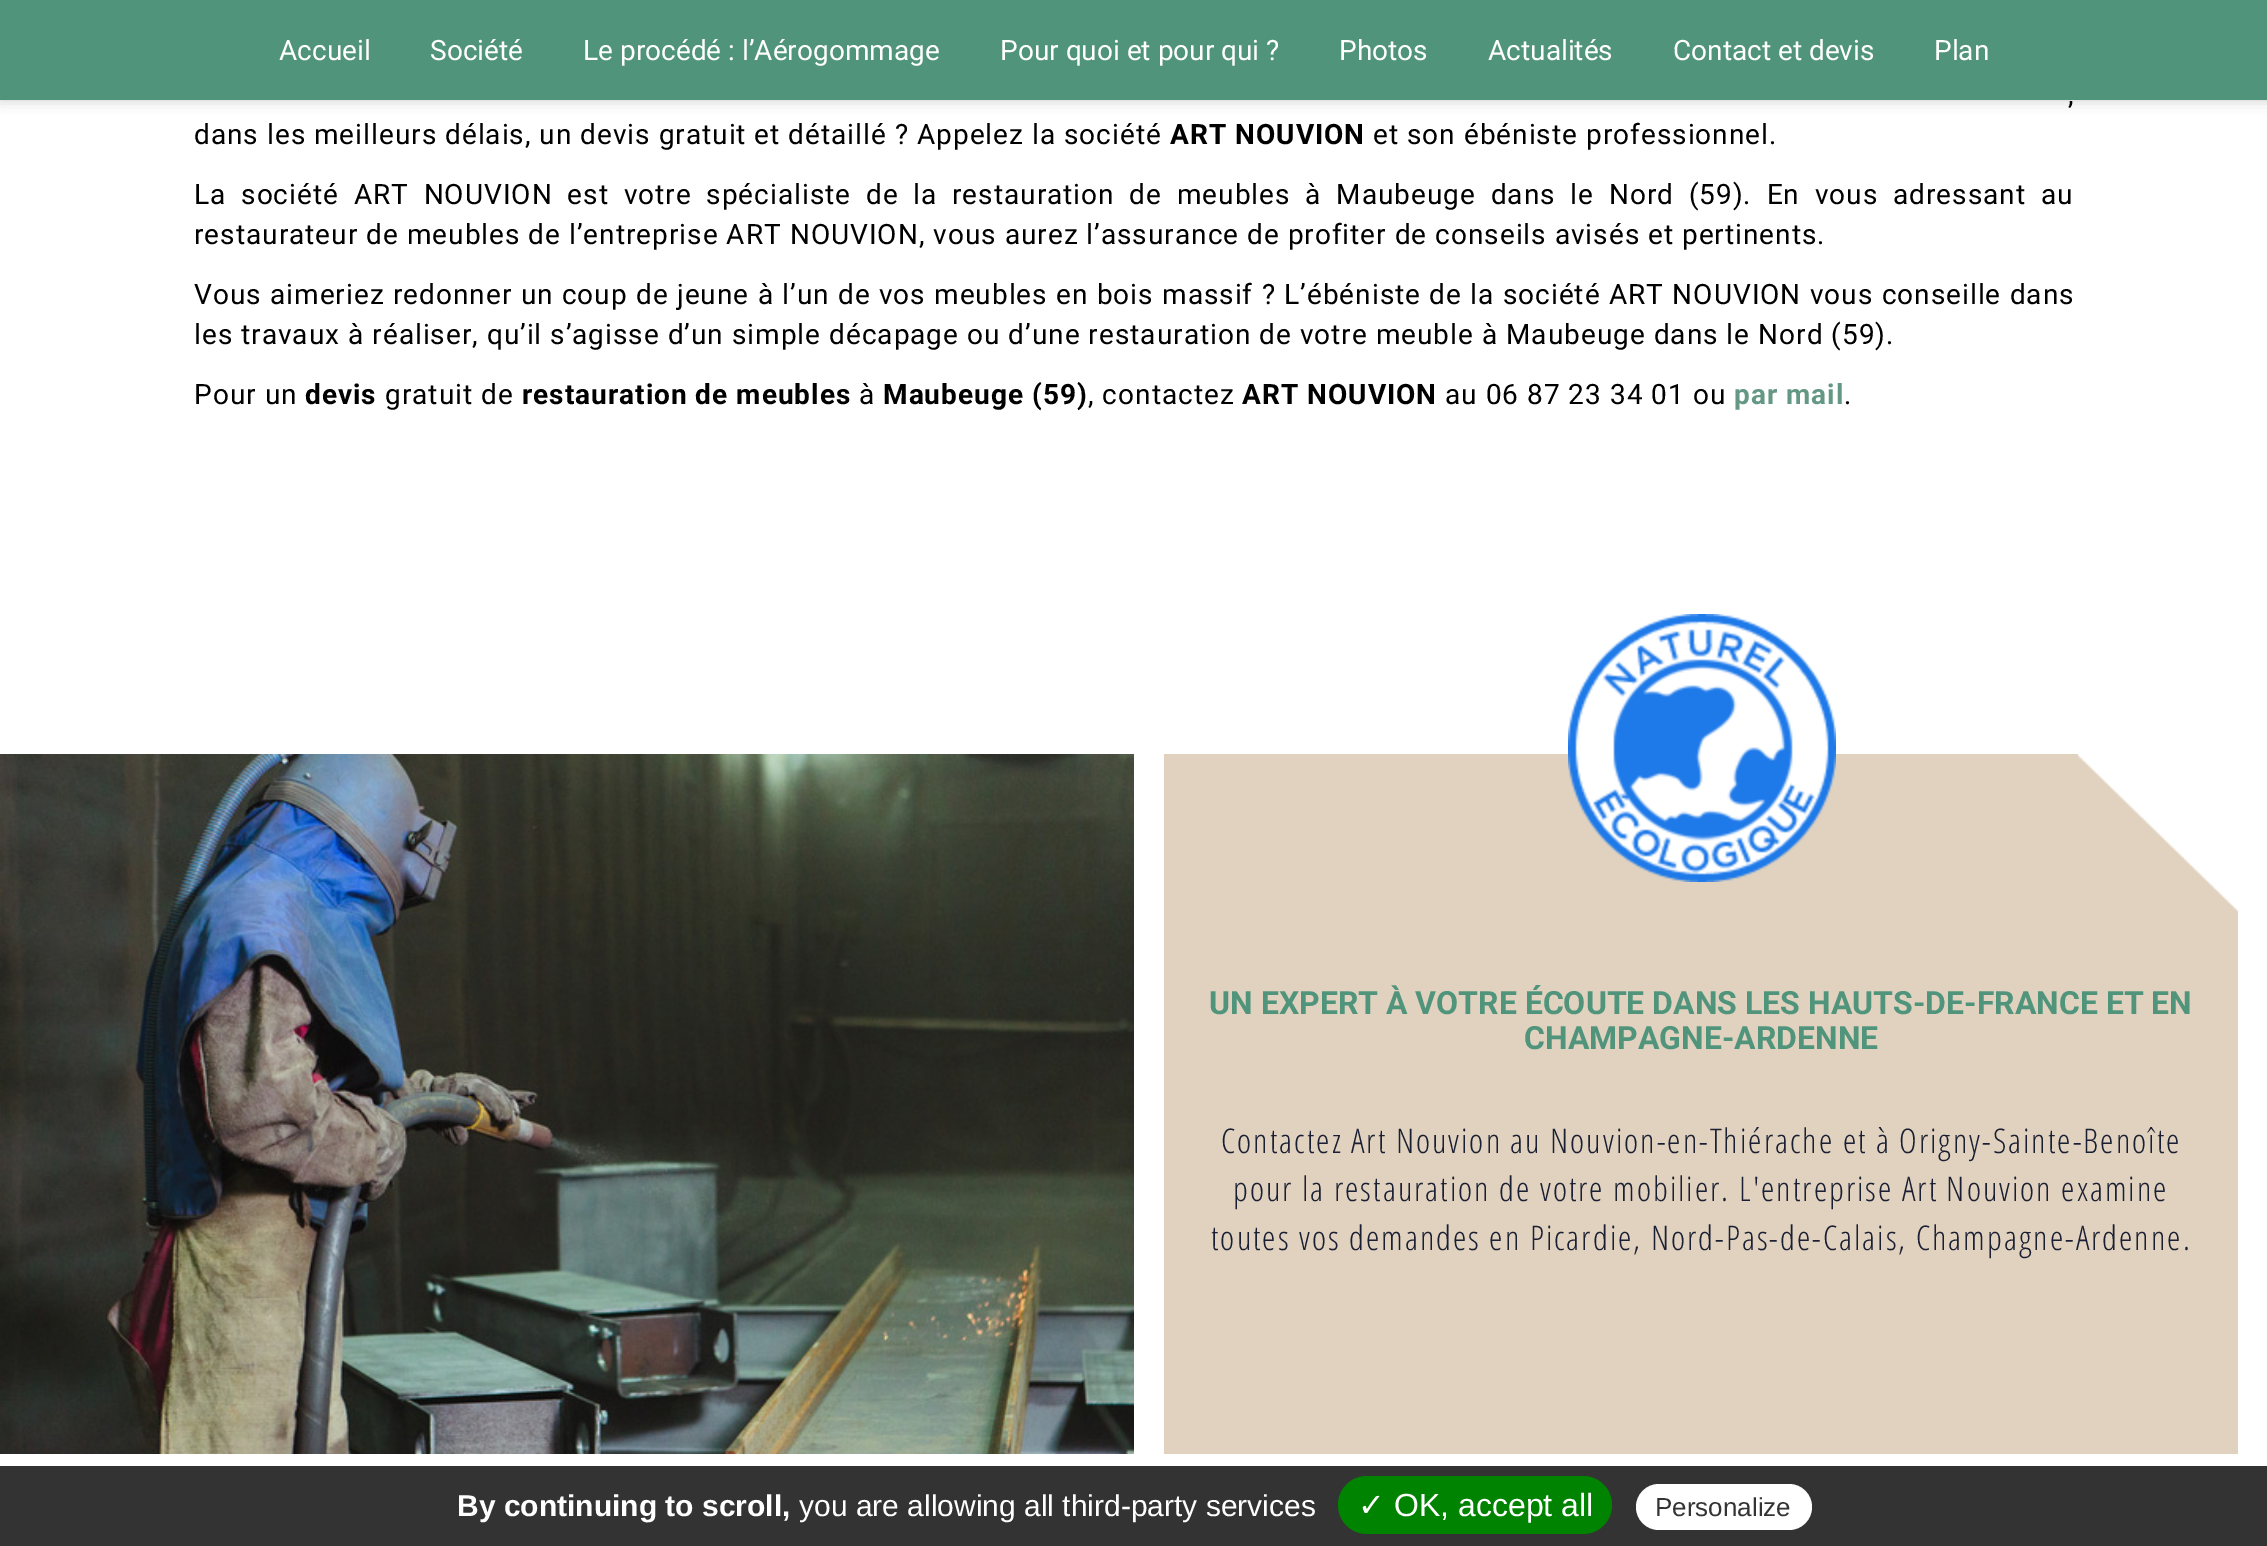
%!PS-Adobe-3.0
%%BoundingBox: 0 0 2267 1546
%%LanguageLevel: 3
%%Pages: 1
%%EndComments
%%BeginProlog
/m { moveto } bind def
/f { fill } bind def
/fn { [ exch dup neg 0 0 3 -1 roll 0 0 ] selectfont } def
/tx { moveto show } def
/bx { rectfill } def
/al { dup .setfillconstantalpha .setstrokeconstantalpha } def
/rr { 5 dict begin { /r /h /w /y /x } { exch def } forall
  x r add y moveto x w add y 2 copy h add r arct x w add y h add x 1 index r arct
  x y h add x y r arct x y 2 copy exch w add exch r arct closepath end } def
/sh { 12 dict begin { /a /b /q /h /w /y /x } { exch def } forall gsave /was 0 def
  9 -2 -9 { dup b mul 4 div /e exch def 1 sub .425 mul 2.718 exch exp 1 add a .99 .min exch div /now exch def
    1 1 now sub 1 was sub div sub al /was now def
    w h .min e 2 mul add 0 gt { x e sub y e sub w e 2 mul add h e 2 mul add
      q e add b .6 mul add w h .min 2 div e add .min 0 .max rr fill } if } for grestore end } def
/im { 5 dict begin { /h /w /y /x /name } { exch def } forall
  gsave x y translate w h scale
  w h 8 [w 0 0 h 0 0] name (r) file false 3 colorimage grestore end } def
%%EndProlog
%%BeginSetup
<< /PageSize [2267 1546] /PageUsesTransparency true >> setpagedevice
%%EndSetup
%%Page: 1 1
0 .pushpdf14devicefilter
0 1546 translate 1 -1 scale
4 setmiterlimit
1 setgray
0 0 2267 1546 bx
0 setgray
0 0 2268 100 0 7 0.2 sh
0.318 0.58 0.486 setrgbcolor
0 0 2267 100 bx
/Roboto-Regular 28 fn
1 setgray
(Accueil) 279 60 tx
(Société) 430 60 tx
(Le procédé : l’Aérogommage) 583 60 tx
(Pour quoi et pour qui ?) 1000 60 tx
(Photos) 1339 60 tx
(Actualités) 1488 60 tx
(Contact et devis) 1673 60 tx
(Plan) 1934 60 tx
0 setgray
2068 104 m 3 0 32 1 0 (,) awidthshow
194 144 m 1 0 (dans les meilleurs délais, un devis gratuit et détaillé ? Appelez la société) ashow
/Roboto-Bold 28 fn
1170 144 m 1 0 (ART NOUVION) ashow
/Roboto-Regular 28 fn
1373 144 m 1 0 (et son ébéniste professionnel.) ashow
194 204 m 6.8 0 32 1 0 (La société ART NOUVION est votre spécialiste de la restauration de meubles à Maubeuge dans le Nord \(59\). En vous adressant au) awidthshow
194 244 m 1 0 (restaurateur de meubles de l’entreprise ART NOUVION, vous aurez l’assurance de profiter de conseils avisés et pertinents.) ashow
194 304 m 0.4 0 32 1 0 (Vous aimeriez redonner un coup de jeune à l’un de vos meubles en bois massif ? L’ébéniste de la société ART NOUVION vous conseille dans) awidthshow
194 344 m 1 0 (les travaux à réaliser, qu’il s’agisse d’un simple décapage ou d’une restauration de votre meuble à Maubeuge dans le Nord \(59\).) ashow
194 404 m 1 0 (Pour un) ashow
/Roboto-Bold 28 fn
305 404 m 1 0 (devis) ashow
/Roboto-Regular 28 fn
385 404 m 1 0 (gratuit de) ashow
/Roboto-Bold 28 fn
522 404 m 1 0 (restauration de meubles) ashow
/Roboto-Regular 28 fn
859 404 m 1 0 (à) ashow
/Roboto-Bold 28 fn
883 404 m 1 0 (Maubeuge \(59\)) ashow
/Roboto-Regular 28 fn
1088 404 m 1 0 (, contactez) ashow
/Roboto-Bold 28 fn
1242 404 m 1 0 (ART NOUVION) ashow
/Roboto-Regular 28 fn
1445 404 m 1 0 (au 06 87 23 34 01 ou) ashow
/Roboto-Bold 28 fn
0.392 0.596 0.522 setrgbcolor
1734 404 m 1 0 (par mail) ashow
/Roboto-Regular 28 fn
0 setgray
1844 404 m 1 0 (.) ashow
(image0.raw) 0 754 1134 700 im
0.878 0.824 0.745 setrgbcolor
1164 754 1074 700 bx
(image1.raw) 1568 614 268 268 im
(image2.raw) 2078 754 160 158 im
/Roboto-Bold 32 fn
0.318 0.58 0.486 setrgbcolor
(UN EXPERT À VOTRE ÉCOUTE DANS LES HAUTS-DE-FRANCE ET EN) 1209 1014 tx
(CHAMPAGNE-ARDENNE) 1524 1049 tx
/OpenSansCondensed-Light 34 fn
0.106 0.122 0.2 setrgbcolor
1221 1153 m 2 0 (Contactez Art Nouvion au Nouvion-en-Thiérache et à Origny-Sainte-Benoîte) ashow
1233 1201 m 2 0 (pour la restauration de votre mobilier. L'entreprise Art Nouvion examine) ashow
1211 1250 m 2 0 (toutes vos demandes en Picardie, Nord-Pas-de-Calais, Champagne-Ardenne.) ashow
0.2 setgray
0 1466 2267 80 bx
/LiberationSans-Bold 30 fn
1 setgray
(By continuing to scroll,) 457 1516 tx
/LiberationSans-Regular 30 fn
(you are allowing all third-party services) 799 1516 tx
0 0.514 0 setrgbcolor
1338 1476 274 58 29 rr f
/DejaVuSans-Regular 32 fn
1 setgray
(✓) 1358 1516 tx
/LiberationSans-Regular 32 fn
(OK, accept all) 1394 1516 tx
1636 1484 176 46 23 rr f
/LiberationSans-Regular 26 fn
0.2 setgray
(Personalize) 1655 1516 tx
.poppdf14devicefilter showpage
%%EOF
